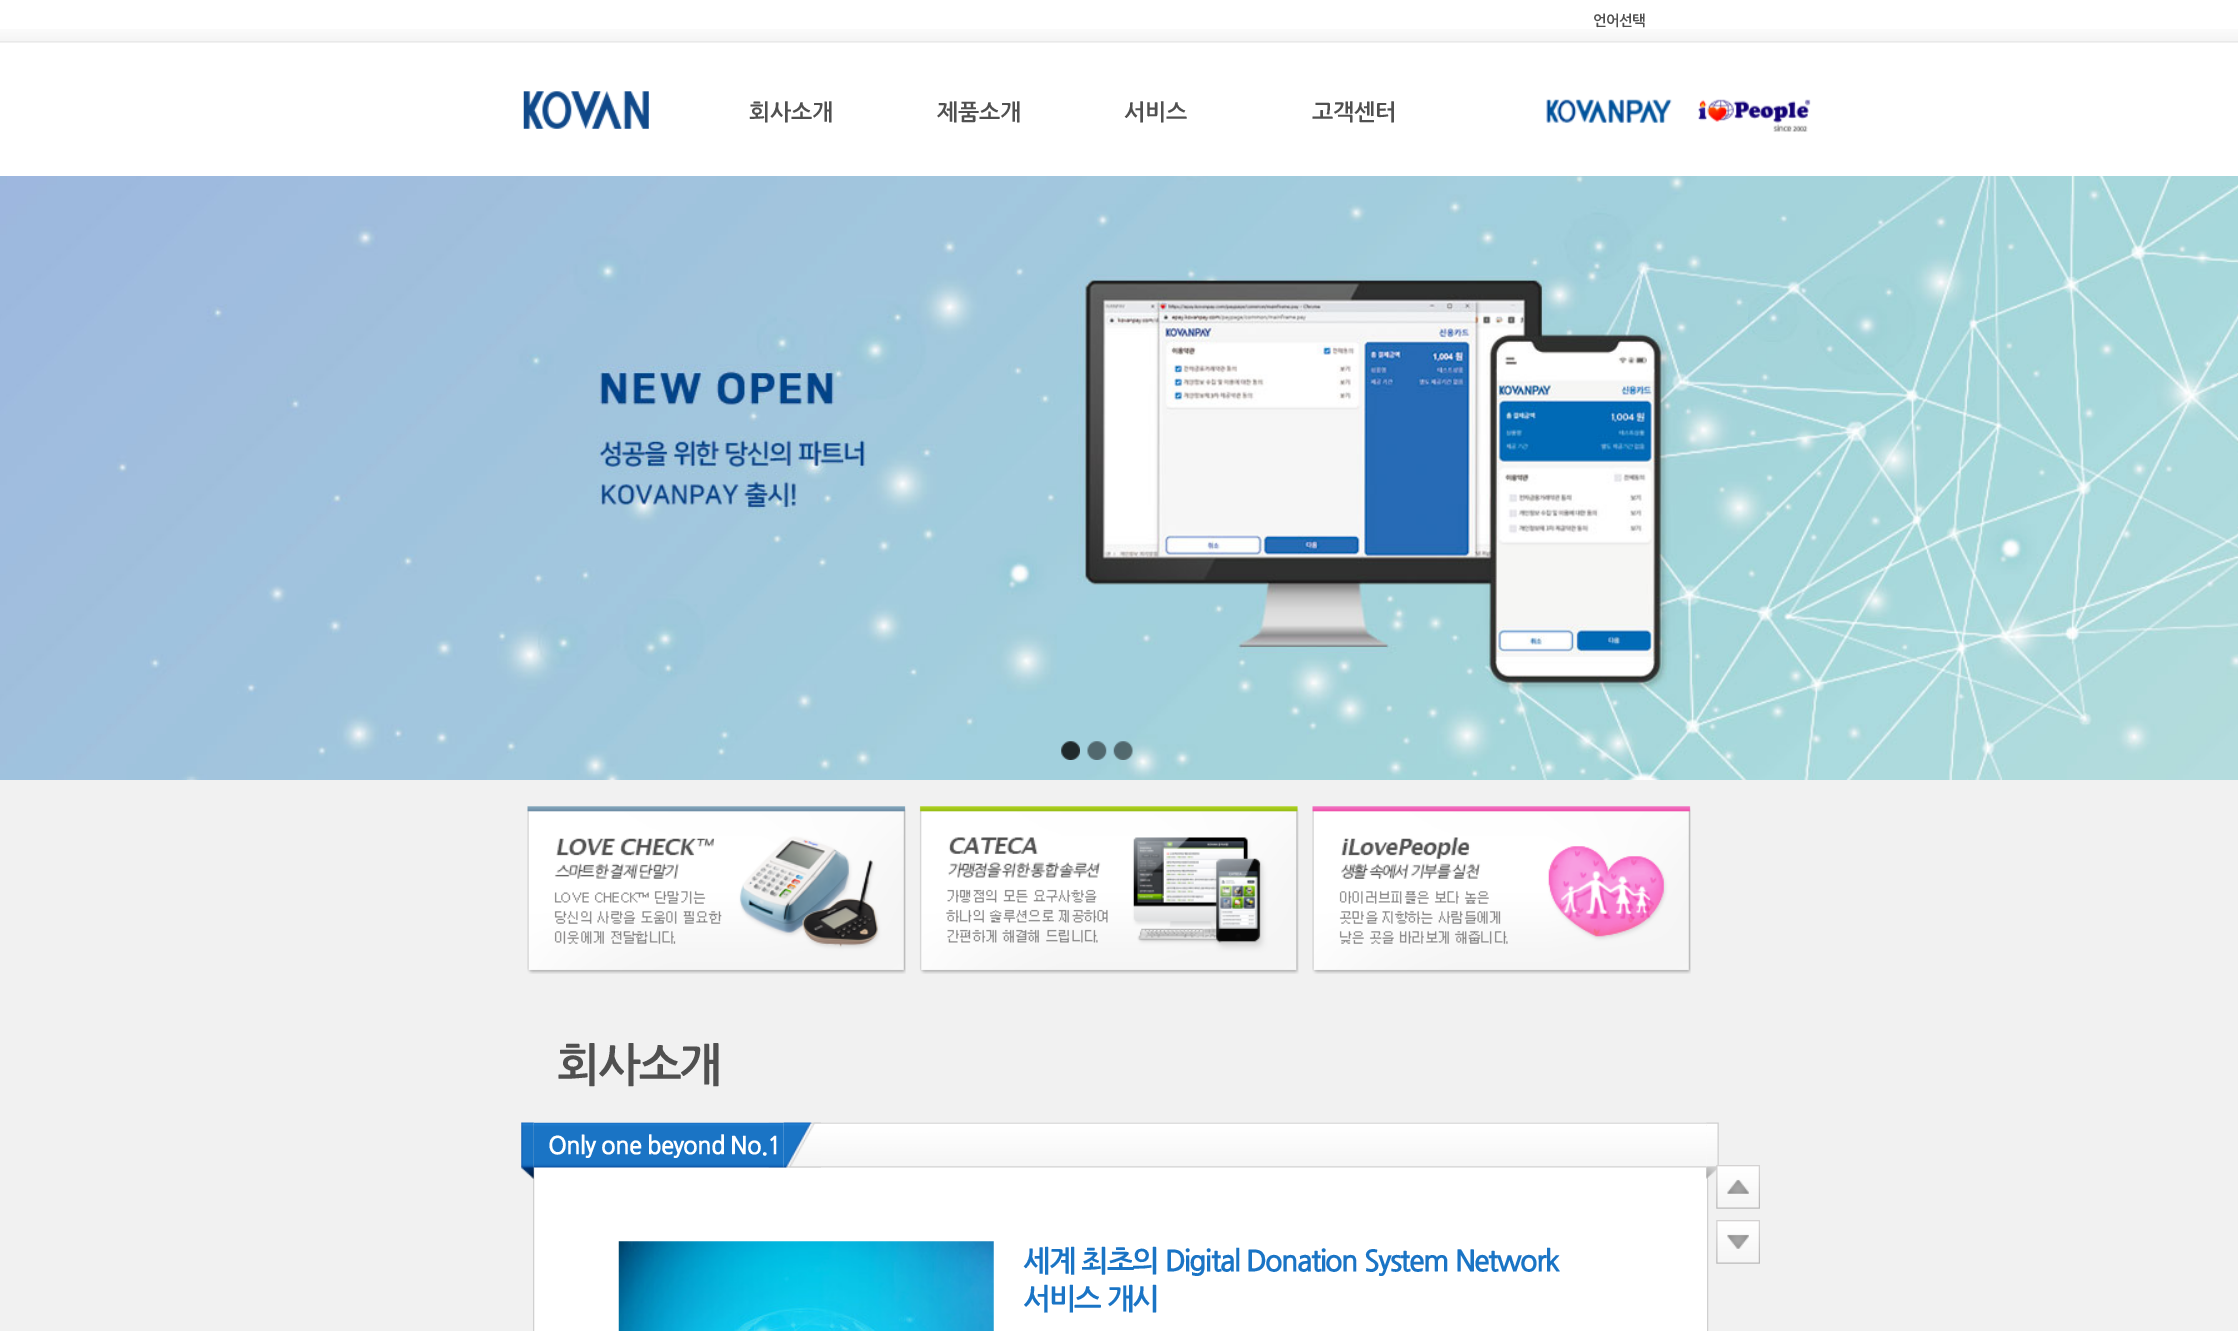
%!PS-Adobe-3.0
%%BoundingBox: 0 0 2238 1331
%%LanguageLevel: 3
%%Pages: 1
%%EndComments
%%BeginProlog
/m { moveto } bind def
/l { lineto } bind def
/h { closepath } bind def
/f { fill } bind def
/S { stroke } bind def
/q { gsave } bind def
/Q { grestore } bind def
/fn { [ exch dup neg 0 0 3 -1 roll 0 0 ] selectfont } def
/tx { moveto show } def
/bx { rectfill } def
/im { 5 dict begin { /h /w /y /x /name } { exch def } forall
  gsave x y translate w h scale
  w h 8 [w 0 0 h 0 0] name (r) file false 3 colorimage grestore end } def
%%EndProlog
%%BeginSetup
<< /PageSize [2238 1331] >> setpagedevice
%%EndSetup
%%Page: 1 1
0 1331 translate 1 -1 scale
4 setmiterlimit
1 setgray
0 0 2238 1331 bx
(image0.raw) 0 29 2238 14 im
/NanumGothic-Bold 14.5 fn
0.314 setgray
1593 25 m -0.5 0 (언어선택) ashow
(image1.raw) 523 91 126 38 im
/NanumGothic-Bold 22.5 fn
(회사소개) 749 119 tx
(제품소개) 937 119 tx
(서비스) 1124 119 tx
(고객센터) 1312 119 tx
(image2.raw) 1546 99 126 24 im
(image3.raw) 1698 99 113 33 im
0.945 setgray
0 780 2238 551 bx
1 setgray
533.5 1125.5 m 1707.5 1125.5 l 1707.5 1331.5 l 533.5 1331.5 l h q f Q
0.816 setgray
S
(image14.raw) 768 1122 939 46 im
(image17.raw) 1706 1122 13 57 im
(image4.raw) 1716 1165 44 44 im
(image5.raw) 1716 1220 44 44 im
(image6.raw) 0 176 2238 604 im
(image7.raw) 1061 741 19 19 im
(image8.raw) 1087 741 20 19 im
(image9.raw) 1113 741 20 19 im
(image10.raw) 527 806 379 168 im
(image11.raw) 919 806 380 168 im
(image12.raw) 1312 806 379 168 im
/NanumGothic-Bold 45.5 fn
0.314 setgray
557 1079 m -2 0 (회사소개) ashow
(image15.raw) 533 1122 251 46 im
(image13.raw) 521 1122 13 57 im
/NanumGothic-Bold 24.4 fn
1 setgray
548 1153 m -1 0 (Only one beyond No.1) ashow
(image16.raw) 783 1122 38 46 im
(image18.raw) 618 1241 376 90 im
/NanumGothic-Bold 29.25 fn
0.102 0.455 0.773 setrgbcolor
1023 1270 m -1.75 0 (세계 최초의 Digital Donation System Network) ashow
1023 1308 m -1.75 0 (서비스 개시) ashow
showpage
%%EOF
